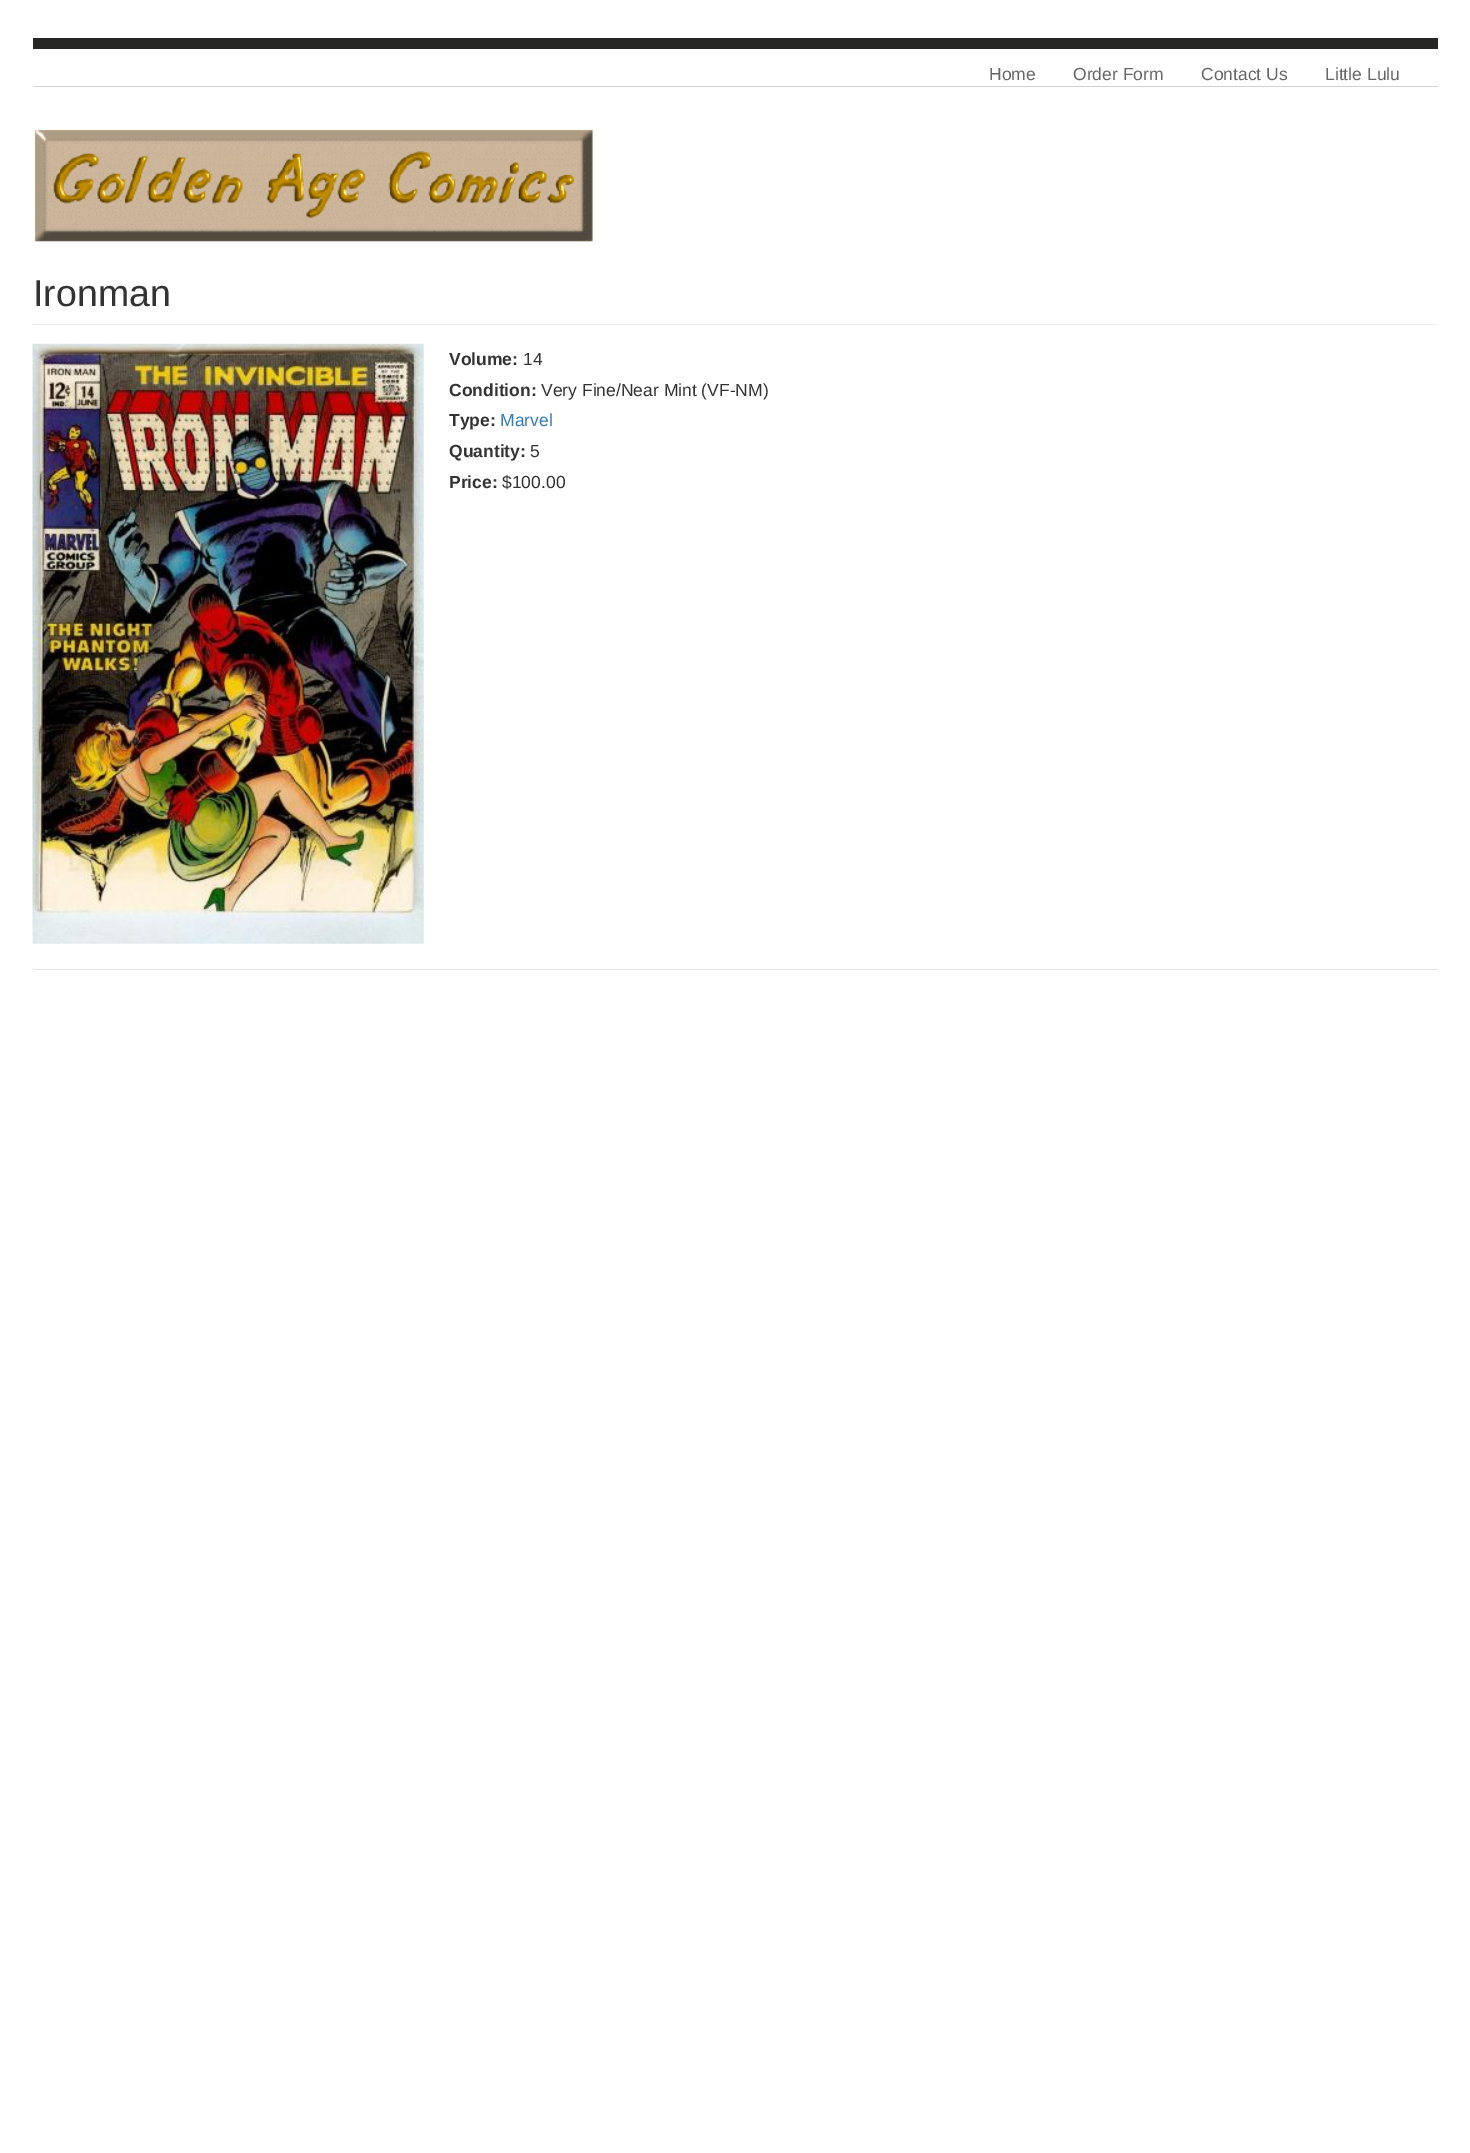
%!PS-Adobe-3.0
%%BoundingBox: 0 0 1470 2153
%%LanguageLevel: 3
%%Pages: 1
%%EndComments
%%BeginProlog
/fn { [ exch dup neg 0 0 3 -1 roll 0 0 ] selectfont } def
/tx { moveto show } def
/bx { rectfill } def
/im { 5 dict begin { /h /w /y /x /name } { exch def } forall
  gsave x y translate w h scale
  w h 8 [w 0 0 h 0 0] name (r) file false 3 colorimage grestore end } def
%%EndProlog
%%BeginSetup
<< /PageSize [1470 2153] >> setpagedevice
%%EndSetup
%%Page: 1 1
0 2153 translate 1 -1 scale
4 setmiterlimit
1 setgray
0 0 1470 2153 bx
0.831 0.831 0.827 setrgbcolor
33 86 1405 1 bx
0.153 0.153 0.145 setrgbcolor
33 38 1405 11 bx
/LiberationSans-Regular 17.5 fn
0.4 setgray
(Home) 989 80 tx
(Order Form) 1073 80 tx
(Contact Us) 1201 80 tx
(Little Lulu) 1325 80 tx
(image0.raw) 34 129 559 113 im
0.933 setgray
33 324 1405 1 bx
/LiberationSans-Regular 37.5 fn
0.2 setgray
(Ironman) 33 306 tx
(image1.raw) 32 343 392 601 im
/LiberationSans-Bold 17.5 fn
(Volume:) 449 365 tx
/LiberationSans-Regular 17.5 fn
(14) 523 365 tx
/LiberationSans-Bold 17.5 fn
(Condition:) 449 396 tx
/LiberationSans-Regular 17.5 fn
(Very Fine/Near Mint \(VF-NM\)) 541 396 tx
/LiberationSans-Bold 17.5 fn
(Type:) 449 426 tx
/LiberationSans-Regular 17.5 fn
0.2 0.478 0.718 setrgbcolor
(Marvel) 500 426 tx
/LiberationSans-Bold 17.5 fn
0.2 setgray
(Quantity:) 449 457 tx
/LiberationSans-Regular 17.5 fn
(5) 530 457 tx
/LiberationSans-Bold 17.5 fn
(Price:) 449 488 tx
/LiberationSans-Regular 17.5 fn
($100.00) 502 488 tx
0.894 0.894 0.886 setrgbcolor
33 969 1405 1 bx
showpage
%%EOF
